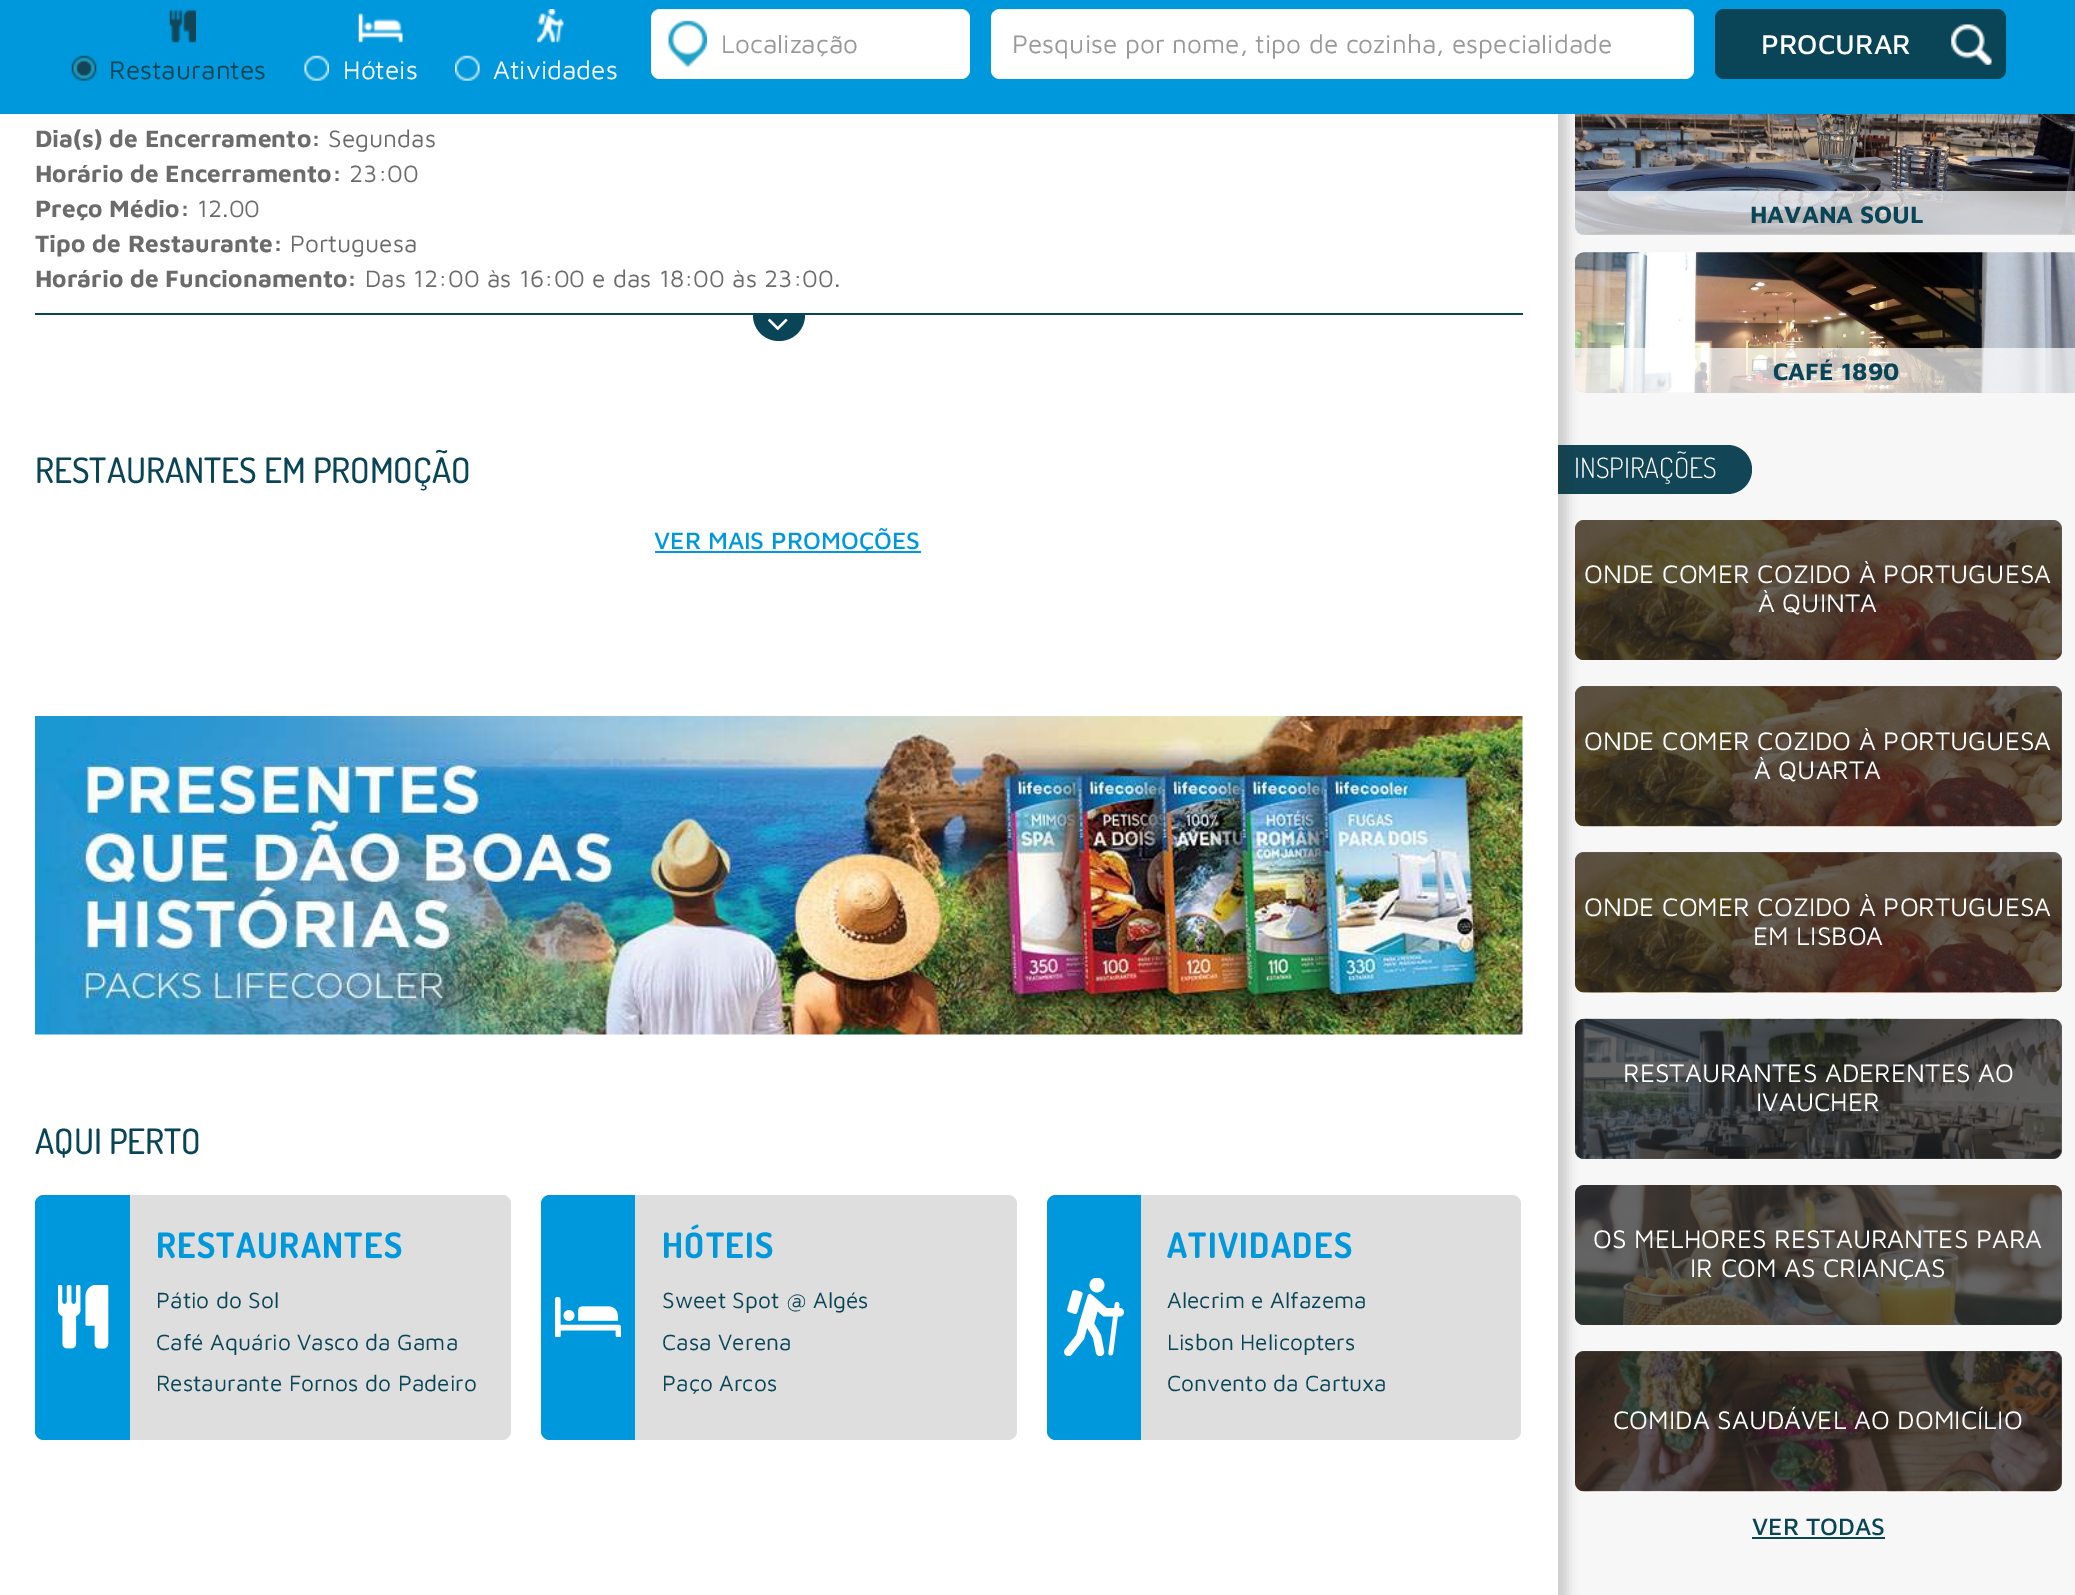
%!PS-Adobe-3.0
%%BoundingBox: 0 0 2075 1595
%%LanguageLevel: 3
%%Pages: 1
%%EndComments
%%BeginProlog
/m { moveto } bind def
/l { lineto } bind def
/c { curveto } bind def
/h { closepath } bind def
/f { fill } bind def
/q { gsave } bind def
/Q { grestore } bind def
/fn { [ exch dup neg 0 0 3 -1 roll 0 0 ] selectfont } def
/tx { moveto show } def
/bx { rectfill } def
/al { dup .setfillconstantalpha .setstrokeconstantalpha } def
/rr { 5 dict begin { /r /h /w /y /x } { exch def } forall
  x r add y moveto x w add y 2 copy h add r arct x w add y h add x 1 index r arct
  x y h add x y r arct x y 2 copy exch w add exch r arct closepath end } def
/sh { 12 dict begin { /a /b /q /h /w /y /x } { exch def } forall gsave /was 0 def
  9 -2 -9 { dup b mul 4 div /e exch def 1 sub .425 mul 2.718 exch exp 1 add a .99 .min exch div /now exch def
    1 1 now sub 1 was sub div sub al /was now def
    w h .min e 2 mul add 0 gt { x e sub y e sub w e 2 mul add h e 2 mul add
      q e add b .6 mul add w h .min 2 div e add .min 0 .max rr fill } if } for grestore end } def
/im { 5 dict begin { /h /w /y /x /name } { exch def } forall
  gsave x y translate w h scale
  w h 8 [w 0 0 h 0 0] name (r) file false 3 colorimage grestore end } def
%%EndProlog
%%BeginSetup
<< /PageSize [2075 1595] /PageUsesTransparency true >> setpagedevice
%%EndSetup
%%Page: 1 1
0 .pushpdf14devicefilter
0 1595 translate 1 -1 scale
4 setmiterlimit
1 setgray
0 0 2075 1595 bx
0.969 setgray
1558 114 517 1481 bx
(image13.raw) 1575 114 500 121 im
0.7 al
1 setgray
1575 191 m 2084 191 l 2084 226 l 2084 231 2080 235 2075 235 c 1584 235 l 1579 235 1575 231 1575 226 c h f
1 al
(image14.raw) 1575 252 500 141 im
0.7 al
1575 348 m 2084 348 l 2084 383 l 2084 388 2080 392 2075 392 c 1584 392 l 1579 392 1575 388 1575 383 c h f
1 al
0.071 0.271 0.333 setrgbcolor
1558 445 m 1727.5 445 l 1741 445 1752 456 1752 469.5 c 1752 483 1741 494 1727.5 494 c 1558 494 l h f
(image15.raw) 1575 520 487 140 im
0.7 al
0.137 setgray
1575 520 487 140 9 rr f
1 al
(image16.raw) 1575 686 487 141 im
0.7 al
1575 686 487 140 9 rr f
1 al
(image17.raw) 1575 852 487 141 im
0.7 al
1575 852 487 140 9 rr f
1 al
(image18.raw) 1575 1018 487 141 im
0.7 al
1575 1019 487 140 9 rr f
1 al
(image19.raw) 1575 1185 487 140 im
0.7 al
1575 1185 487 140 9 rr f
1 al
(image20.raw) 1575 1351 487 141 im
0.7 al
1575 1351 487 140 9 rr f
q
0 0 m 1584 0 l 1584 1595 l 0 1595 l h 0 -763 m 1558 -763 l 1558 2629 l 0 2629 l h eoclip newpath
1 al
0.161 setgray
11 -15 1557 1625 0 5 0.2 sh
Q
1 al
0 0.596 0.867 setrgbcolor
0 0 2075 114 bx
1 setgray
651 9 319 70 9 rr f
(image0.raw) 668 20 39 47 im
0.07 al
0 setgray
660 10 m 961 10 l 966 10 970 14 970 19 c 970 18 l 970 13 966 9 961 9 c 660 9 l 655 9 651 13 651 18 c 651 19 l 651 14 655 10 660 10 c h f
/MavenPro-Regular 26.25 fn
1 al
0.6 setgray
(Localização) 721 53 tx
1 setgray
991 9 703 70 9 rr f
0.07 al
0 setgray
999 10 m 1685 10 l 1690 10 1694 14 1694 19 c 1694 18 l 1694 13 1690 9 1685 9 c 1000 9 l 997 9 995 10 993 12 c 995 11 997 10 999 10 c h f
1 al
0.6 setgray
(Pesquise por nome, tipo de cozinha, especialidade) 1012 53 tx
0.035 0.271 0.337 setrgbcolor
1715 9 291 70 9 rr f
/MavenPro-Medium 28 fn
1 setgray
(PROCURAR) 1761 54 tx
(image1.raw) 1951 24 41 41 im
(image2.raw) 169 9 27 34 im
(image3.raw) 71 55 26 26 im
/MavenPro-Regular 26.25 fn
0.035 0.271 0.337 setrgbcolor
(Restaurantes) 109 79 tx
(image4.raw) 358 13 45 30 im
(image5.raw) 304 55 25 26 im
1 setgray
(Hóteis) 343 79 tx
(image6.raw) 537 9 27 34 im
(image7.raw) 455 55 25 26 im
(Atividades) 493 79 tx
0.035 0.271 0.337 setrgbcolor
35 313 1488 2 bx
/MavenPro-Bold 24.5 fn
0.42 setgray
(Dia\(s\) de Encerramento:) 35 147 tx
/MavenPro-Regular 24.5 fn
(Segundas) 328 147 tx
/MavenPro-Bold 24.5 fn
(Horário de Encerramento:) 35 182 tx
/MavenPro-Regular 24.5 fn
(23:00) 349 182 tx
/MavenPro-Bold 24.5 fn
(Preço Médio:) 35 217 tx
/MavenPro-Regular 24.5 fn
(12.00) 197 217 tx
/MavenPro-Bold 24.5 fn
(Tipo de Restaurante:) 35 252 tx
/MavenPro-Regular 24.5 fn
(Portuguesa) 290 252 tx
/MavenPro-Bold 24.5 fn
(Horário de Funcionamento:) 35 287 tx
/MavenPro-Regular 24.5 fn
(Das 12:00 às 16:00 e das 18:00 às 23:00.) 365 287 tx
0.035 0.271 0.337 setrgbcolor
753 315 m 805 315 l 805 329.5 793.5 341 779 341 c 764.5 341 753 329.5 753 315 c h f
(image8.raw) 768 318 20 13 im
/Dosis-Medium 35 fn
(RESTAURANTES EM PROMOÇÃO) 35 483 tx
0 0.596 0.867 setrgbcolor
655 551 266 2 bx
/MavenPro-Medium 24.5 fn
(VER MAIS PROMOÇÕES) 654 549 tx
(image9.raw) 35 716 1488 319 im
/Dosis-Medium 35 fn
0.035 0.271 0.337 setrgbcolor
(AQUI PERTO) 35 1154 tx
0.871 setgray
35 1195 476 245 9 rr f
0 0.596 0.867 setrgbcolor
44 1195 m 130 1195 l 130 1440 l 44 1440 l 39 1440 35 1436 35 1431 c 35 1204 l 35 1199 39 1195 44 1195 c h f
(image10.raw) 58 1285 51 64 im
/Dosis-Bold 35 fn
156 1258 m 1.25 0 (RESTAURANTES) ashow
/MavenPro-Regular 22.75 fn
0.035 0.271 0.337 setrgbcolor
(Pátio do Sol) 156 1308 tx
(Café Aquário Vasco da Gama) 156 1350 tx
(Restaurante Fornos do Padeiro) 156 1391 tx
0.871 setgray
541 1195 476 245 9 rr f
0 0.596 0.867 setrgbcolor
550 1195 m 635 1195 l 635 1440 l 550 1440 l 545 1440 541 1436 541 1431 c 541 1204 l 541 1199 545 1195 550 1195 c h f
(image11.raw) 555 1297 66 40 im
/Dosis-Bold 35 fn
662 1258 m 1.25 0 (HÓTEIS) ashow
/MavenPro-Regular 22.75 fn
0.035 0.271 0.337 setrgbcolor
(Sweet Spot @ Algés) 662 1308 tx
(Casa Verena) 662 1350 tx
(Paço Arcos) 662 1391 tx
0.871 setgray
1047 1195 474 245 9 rr f
0 0.596 0.867 setrgbcolor
1056 1195 m 1141 1195 l 1141 1440 l 1056 1440 l 1051 1440 1047 1436 1047 1431 c 1047 1204 l 1047 1199 1051 1195 1056 1195 c h f
(image12.raw) 1064 1278 60 78 im
/Dosis-Bold 35 fn
1167 1258 m 1.25 0 (ATIVIDADES) ashow
/MavenPro-Regular 22.75 fn
0.035 0.271 0.337 setrgbcolor
(Alecrim e Alfazema) 1167 1308 tx
(Lisbon Helicopters) 1167 1350 tx
(Convento da Cartuxa) 1167 1391 tx
/MavenPro-Bold 24.5 fn
(HAVANA SOUL) 1750 223 tx
(CAFÉ 1890) 1773 380 tx
/Dosis-Light 28 fn
1 setgray
(INSPIRAÇÕES) 1574 478 tx
/MavenPro-Regular 26.25 fn
(ONDE COMER COZIDO À PORTUGUESA) 1584 583 tx
(À QUINTA) 1758 612 tx
(ONDE COMER COZIDO À PORTUGUESA) 1584 750 tx
(À QUARTA) 1754 779 tx
(ONDE COMER COZIDO À PORTUGUESA) 1584 916 tx
(EM LISBOA) 1753 945 tx
(RESTAURANTES ADERENTES AO) 1623 1082 tx
(IVAUCHER) 1756 1111 tx
(OS MELHORES RESTAURANTES PARA) 1593 1248 tx
(IR COM AS CRIANÇAS) 1690 1277 tx
(COMIDA SAUDÁVEL AO DOMICÍLIO) 1613 1429 tx
/MavenPro-Medium 24.5 fn
0.035 0.271 0.337 setrgbcolor
(VER TODAS) 1752 1535 tx
1752 1537 133 2 bx
.poppdf14devicefilter showpage
%%EOF
